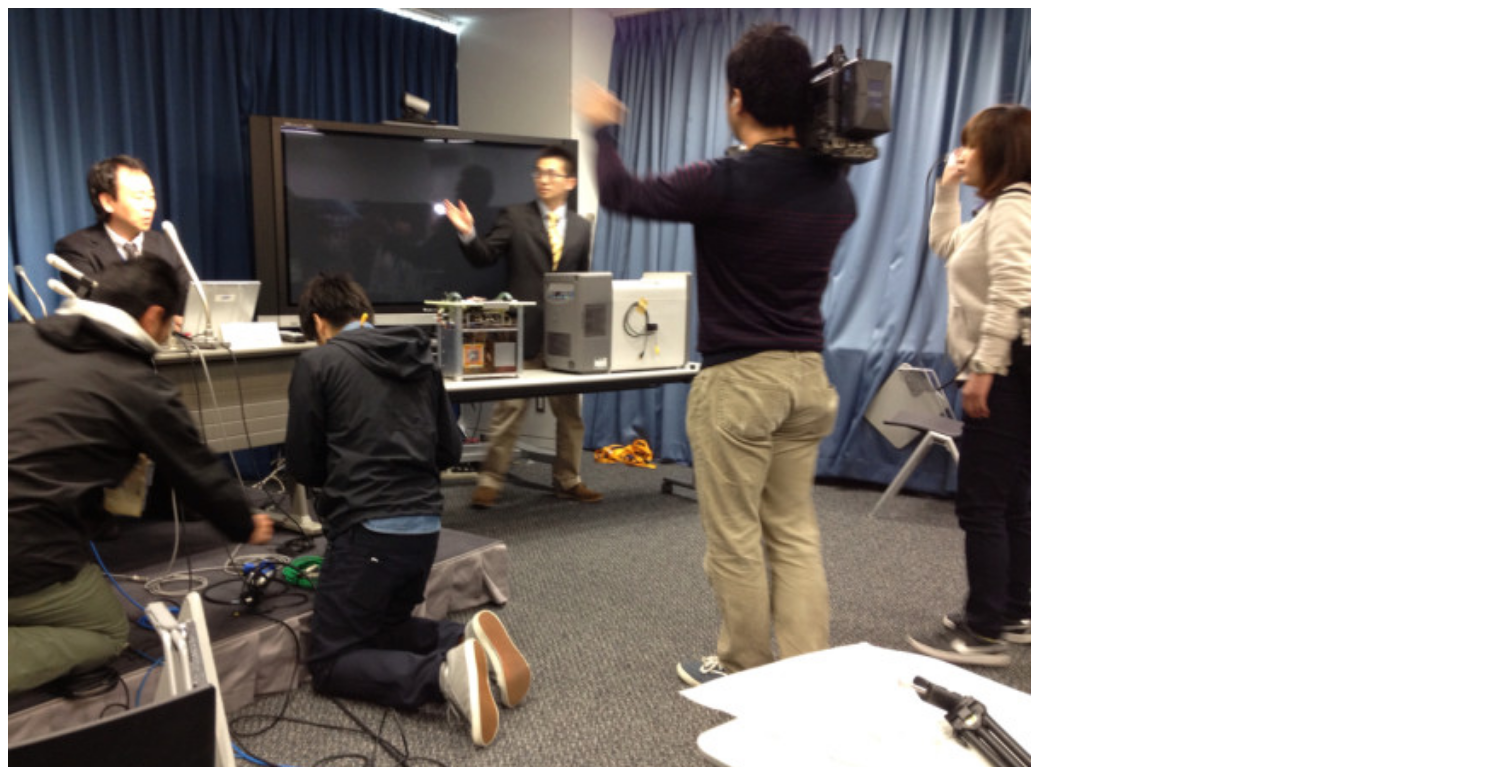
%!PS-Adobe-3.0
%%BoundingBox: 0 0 1510 767
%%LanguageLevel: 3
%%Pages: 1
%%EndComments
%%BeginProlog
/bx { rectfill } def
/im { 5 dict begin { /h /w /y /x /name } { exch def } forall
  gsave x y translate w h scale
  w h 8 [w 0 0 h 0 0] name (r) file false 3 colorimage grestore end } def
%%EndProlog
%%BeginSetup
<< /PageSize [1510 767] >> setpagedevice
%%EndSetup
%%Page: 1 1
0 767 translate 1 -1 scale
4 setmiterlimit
1 setgray
0 0 1510 767 bx
(image0.raw) 8 8 1023 759 im
showpage
%%EOF
